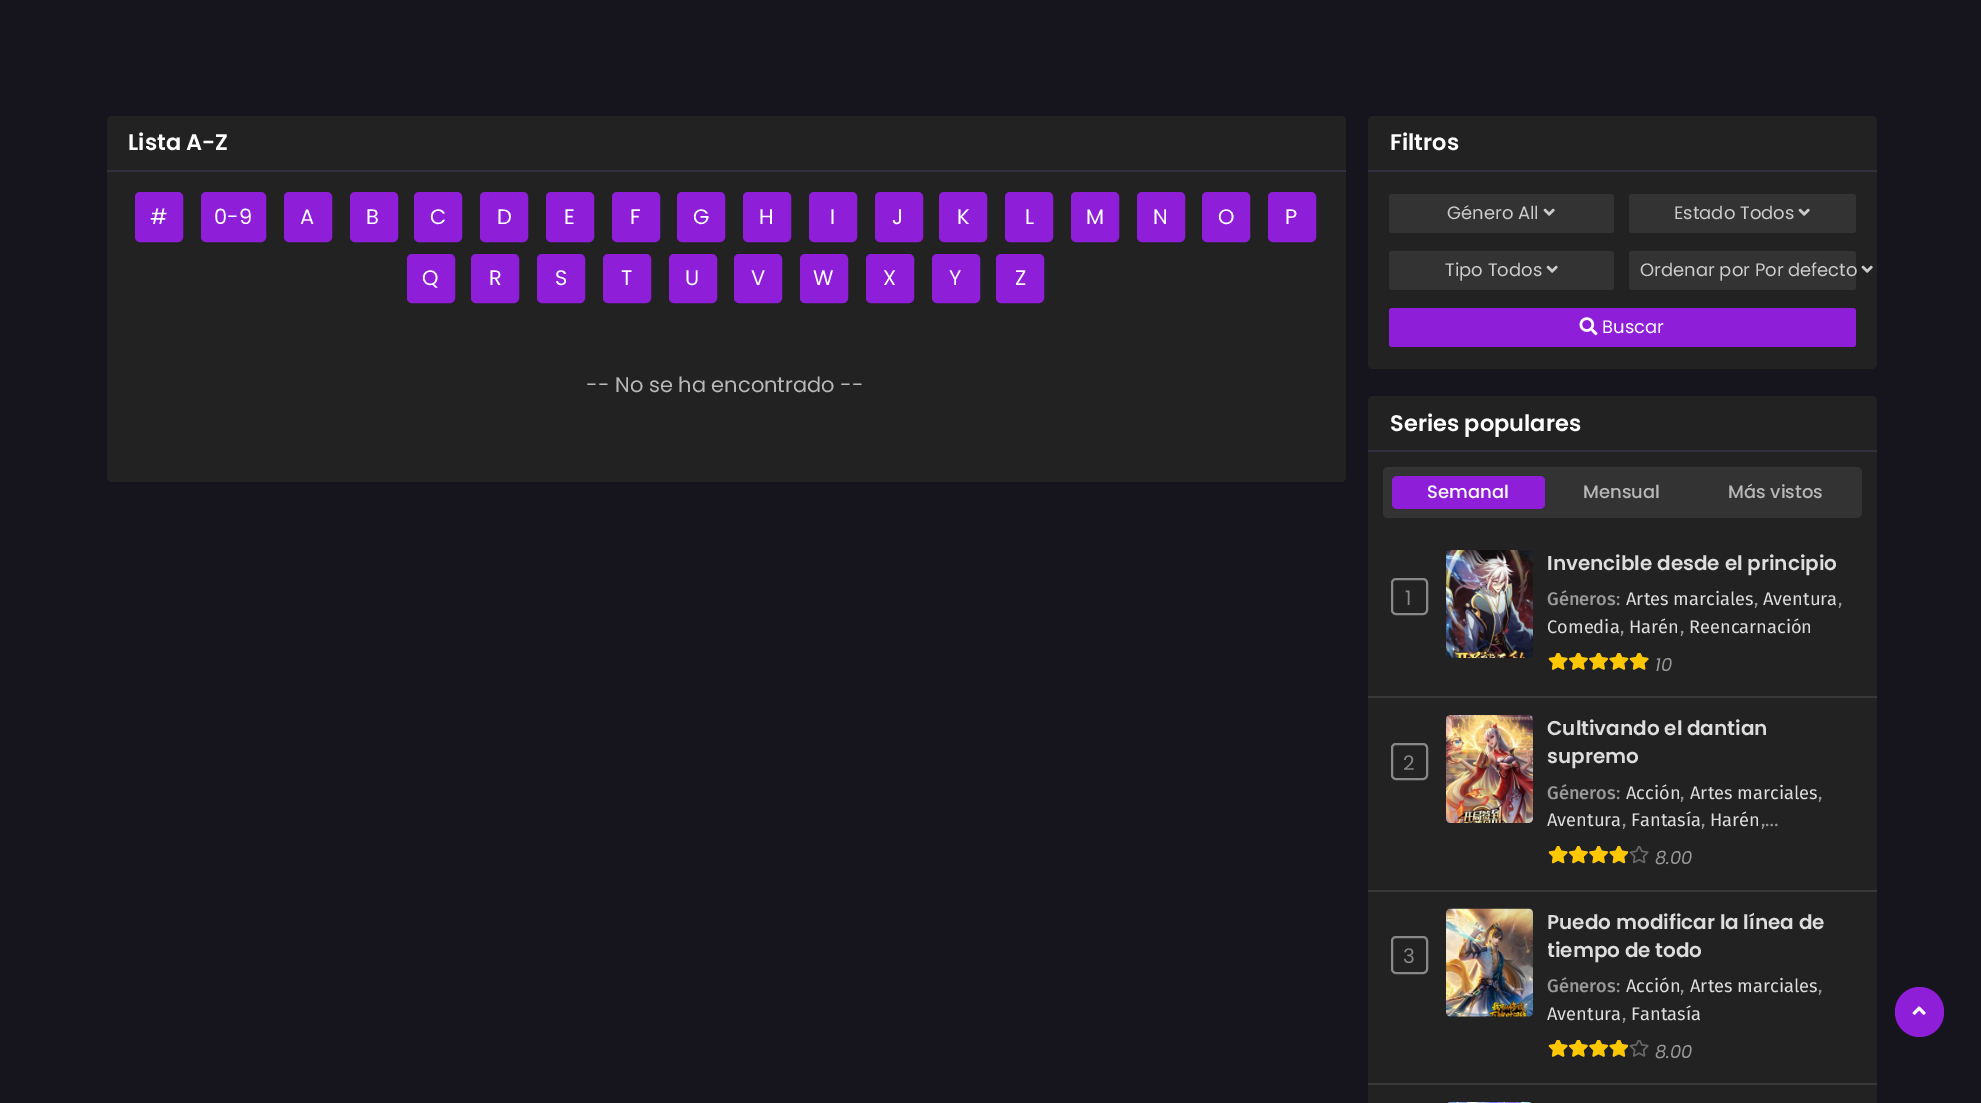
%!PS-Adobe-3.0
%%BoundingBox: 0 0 1981 1103
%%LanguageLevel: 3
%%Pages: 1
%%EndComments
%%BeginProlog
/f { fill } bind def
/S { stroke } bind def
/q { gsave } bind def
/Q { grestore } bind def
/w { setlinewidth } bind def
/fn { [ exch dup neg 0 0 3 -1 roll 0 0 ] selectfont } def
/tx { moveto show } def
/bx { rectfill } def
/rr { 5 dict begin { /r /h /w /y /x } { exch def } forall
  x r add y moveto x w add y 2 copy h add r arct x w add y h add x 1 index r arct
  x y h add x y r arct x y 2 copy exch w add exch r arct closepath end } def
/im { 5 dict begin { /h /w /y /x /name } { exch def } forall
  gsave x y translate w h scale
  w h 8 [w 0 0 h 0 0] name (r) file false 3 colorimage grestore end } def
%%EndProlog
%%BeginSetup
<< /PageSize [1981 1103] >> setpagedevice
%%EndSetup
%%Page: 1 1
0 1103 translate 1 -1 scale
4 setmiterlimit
0.086 0.082 0.114 setrgbcolor
0 0 1981 1103 bx
0.133 setgray
107 116 1239 366 5 rr f
0.192 0.184 0.251 setrgbcolor
107 170 1239 2 bx
/Poppins-SemiBold 22.5 fn
1 setgray
(Lista A-Z) 128 150 tx
0.557 0.118 0.847 setrgbcolor
136 193 46 48 4 rr q f Q
2 w
S
/Poppins-Regular 21 fn
1 setgray
(#) 150 224 tx
0.557 0.118 0.847 setrgbcolor
202 193 63 48 4 rr q f Q
S
1 setgray
(0-9) 214 224 tx
0.557 0.118 0.847 setrgbcolor
285 193 46 48 4 rr q f Q
S
1 setgray
(A) 300 224 tx
0.557 0.118 0.847 setrgbcolor
351 193 46 48 4 rr q f Q
S
1 setgray
(B) 366 224 tx
0.557 0.118 0.847 setrgbcolor
415 193 46 48 4 rr q f Q
S
1 setgray
(C) 430 224 tx
0.557 0.118 0.847 setrgbcolor
481 193 46 48 4 rr q f Q
S
1 setgray
(D) 497 224 tx
0.557 0.118 0.847 setrgbcolor
547 193 46 48 4 rr q f Q
S
1 setgray
(E) 564 224 tx
0.557 0.118 0.847 setrgbcolor
613 193 46 48 4 rr q f Q
S
1 setgray
(F) 630 224 tx
0.557 0.118 0.847 setrgbcolor
678 193 46 48 4 rr q f Q
S
1 setgray
(G) 693 224 tx
0.557 0.118 0.847 setrgbcolor
744 193 46 48 4 rr q f Q
S
1 setgray
(H) 759 224 tx
0.557 0.118 0.847 setrgbcolor
810 193 46 48 4 rr q f Q
S
1 setgray
(I) 830 224 tx
0.557 0.118 0.847 setrgbcolor
876 193 46 48 4 rr q f Q
S
1 setgray
(J) 892 224 tx
0.557 0.118 0.847 setrgbcolor
940 193 46 48 4 rr q f Q
S
1 setgray
(K) 957 224 tx
0.557 0.118 0.847 setrgbcolor
1006 193 46 48 4 rr q f Q
S
1 setgray
(L) 1025 224 tx
0.557 0.118 0.847 setrgbcolor
1072 193 46 48 4 rr q f Q
S
1 setgray
(M) 1086 224 tx
0.557 0.118 0.847 setrgbcolor
1138 193 46 48 4 rr q f Q
S
1 setgray
(N) 1153 224 tx
0.557 0.118 0.847 setrgbcolor
1203 193 46 48 4 rr q f Q
S
1 setgray
(O) 1218 224 tx
0.557 0.118 0.847 setrgbcolor
1269 193 46 48 4 rr q f Q
S
1 setgray
(P) 1285 224 tx
0.557 0.118 0.847 setrgbcolor
408 255 46 47 4 rr q f Q
S
1 setgray
(Q) 422 285 tx
0.557 0.118 0.847 setrgbcolor
472 255 46 47 4 rr q f Q
S
1 setgray
(R) 489 285 tx
0.557 0.118 0.847 setrgbcolor
538 255 46 47 4 rr q f Q
S
1 setgray
(S) 555 285 tx
0.557 0.118 0.847 setrgbcolor
604 255 46 47 4 rr q f Q
S
1 setgray
(T) 621 285 tx
0.557 0.118 0.847 setrgbcolor
670 255 46 47 4 rr q f Q
S
1 setgray
(U) 685 285 tx
0.557 0.118 0.847 setrgbcolor
735 255 46 47 4 rr q f Q
S
1 setgray
(V) 751 285 tx
0.557 0.118 0.847 setrgbcolor
801 255 46 47 4 rr q f Q
S
1 setgray
(W) 813 285 tx
0.557 0.118 0.847 setrgbcolor
867 255 46 47 4 rr q f Q
S
1 setgray
(X) 883 285 tx
0.557 0.118 0.847 setrgbcolor
933 255 46 47 4 rr q f Q
S
1 setgray
(Y) 949 285 tx
0.557 0.118 0.847 setrgbcolor
997 255 46 47 4 rr q f Q
S
1 setgray
(Z) 1015 285 tx
0.722 setgray
(-- No se ha encontrado --) 586 392 tx
0.133 setgray
1368 116 509 253 5 rr f
0.192 0.184 0.251 setrgbcolor
1368 170 509 2 bx
/Poppins-SemiBold 22.5 fn
1 setgray
(Filtros) 1390 150 tx
0.2 setgray
1389 194 225 39 3 rr f
/Poppins-Regular 18 fn
0.8 setgray
(Género All) 1447 219 tx
(image0.raw) 1543 208 12 8 im
0.2 setgray
1629 194 227 39 3 rr f
0.8 setgray
(Estado Todos) 1674 219 tx
(image0.raw) 1798 208 12 8 im
0.2 setgray
1389 251 225 39 3 rr f
0.8 setgray
(Tipo Todos) 1445 276 tx
(image0.raw) 1546 265 12 8 im
0.2 setgray
1629 251 227 39 3 rr f
0.8 setgray
(Ordenar por Por defecto) 1640 276 tx
(image1.raw) 1861 265 12 8 im
0.557 0.118 0.847 setrgbcolor
1389 308 467 39 3 rr f
(image2.raw) 1579 317 19 19 im
1 setgray
(Buscar) 1602 333 tx
0.133 setgray
1368 396 509 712 5 rr f
0.192 0.184 0.251 setrgbcolor
1368 450 509 2 bx
/Poppins-SemiBold 22.5 fn
1 setgray
(Series populares) 1390 431 tx
0.2 setgray
1383 467 479 51 5 rr f
0.557 0.118 0.847 setrgbcolor
1392 476 153 33 5 rr f
/Poppins-Medium 18 fn
1 setgray
(Semanal) 1427 498 tx
0.722 setgray
(Mensual) 1583 498 tx
(Más vistos) 1728 498 tx
0.22 setgray
1368 696 509 2 bx
0.533 setgray
1392 579 35 35 4 rr S
/Poppins-Regular 20 fn
(1) 1405 605 tx
(image3.raw) 1446 550 87 108 im
/Poppins-SemiBold 20 fn
0.867 setgray
(Invencible desde el principio) 1547 570 tx
/FiraSans-Medium 18.25 fn
0.6 setgray
(Géneros) 1547 605 tx
/FiraSans-Regular 18.25 fn
(:) 1616 605 tx
0.867 setgray
(Artes marciales) 1626 605 tx
0.6 setgray
(,) 1754 605 tx
0.867 setgray
(Aventura) 1763 605 tx
0.6 setgray
(,) 1838 605 tx
0.867 setgray
(Comedia) 1547 633 tx
0.6 setgray
(,) 1620 633 tx
0.867 setgray
(Harén) 1629 633 tx
0.6 setgray
(,) 1680 633 tx
0.867 setgray
(Reencarnación) 1689 633 tx
(image4.raw) 1548 653 101 17 im
(image5.raw) 1548 653 101 17 im
/Poppins-Italic 18 fn
0.6 setgray
(10) 1655 671 tx
0.22 setgray
1368 890 509 2 bx
0.533 setgray
1392 744 35 35 4 rr S
/Poppins-Regular 20 fn
(2) 1403 770 tx
(image6.raw) 1446 715 87 108 im
/Poppins-SemiBold 20 fn
0.867 setgray
(Cultivando el dantian) 1547 735 tx
(supremo) 1547 763 tx
/FiraSans-Medium 18.25 fn
0.6 setgray
(Géneros) 1547 799 tx
/FiraSans-Regular 18.25 fn
(:) 1616 799 tx
0.867 setgray
(Acción) 1626 799 tx
0.6 setgray
(,) 1680 799 tx
0.867 setgray
(Artes marciales) 1690 799 tx
0.6 setgray
(,) 1818 799 tx
0.867 setgray
(Aventura) 1547 826 tx
0.6 setgray
(,) 1622 826 tx
0.867 setgray
(Fantasía) 1631 826 tx
0.6 setgray
(,) 1701 826 tx
0.867 setgray
(Harén) 1710 826 tx
0.6 setgray
(,…) 1761 826 tx
(image7.raw) 1548 846 101 18 im
(image8.raw) 1548 846 80 18 im
/Poppins-Italic 18 fn
(8.00) 1655 864 tx
0.22 setgray
1368 1083 509 2 bx
0.533 setgray
1392 937 35 36 4 rr S
/Poppins-Regular 20 fn
(3) 1403 963 tx
(image9.raw) 1446 908 87 109 im
/Poppins-SemiBold 20 fn
0.867 setgray
(Puedo modificar la línea de) 1547 929 tx
q
1548 909 306 56 rectclip
(tiempo de todo) 1547 957 tx
Q
/FiraSans-Medium 18.25 fn
0.6 setgray
(Géneros) 1547 992 tx
/FiraSans-Regular 18.25 fn
(:) 1616 992 tx
0.867 setgray
(Acción) 1626 992 tx
0.6 setgray
(,) 1680 992 tx
0.867 setgray
(Artes marciales) 1690 992 tx
0.6 setgray
(,) 1818 992 tx
0.867 setgray
(Aventura) 1547 1020 tx
0.6 setgray
(,) 1622 1020 tx
0.867 setgray
(Fantasía) 1631 1020 tx
(image4.raw) 1548 1040 101 17 im
(image10.raw) 1548 1040 80 17 im
/Poppins-Italic 18 fn
0.6 setgray
(8.00) 1655 1058 tx
(image11.raw) 1447 1102 85 1 im
0.557 0.118 0.847 setrgbcolor
1895 987 49 50 24.5 rr f
(image12.raw) 1912 1006 14 9 im
showpage
%%EOF
